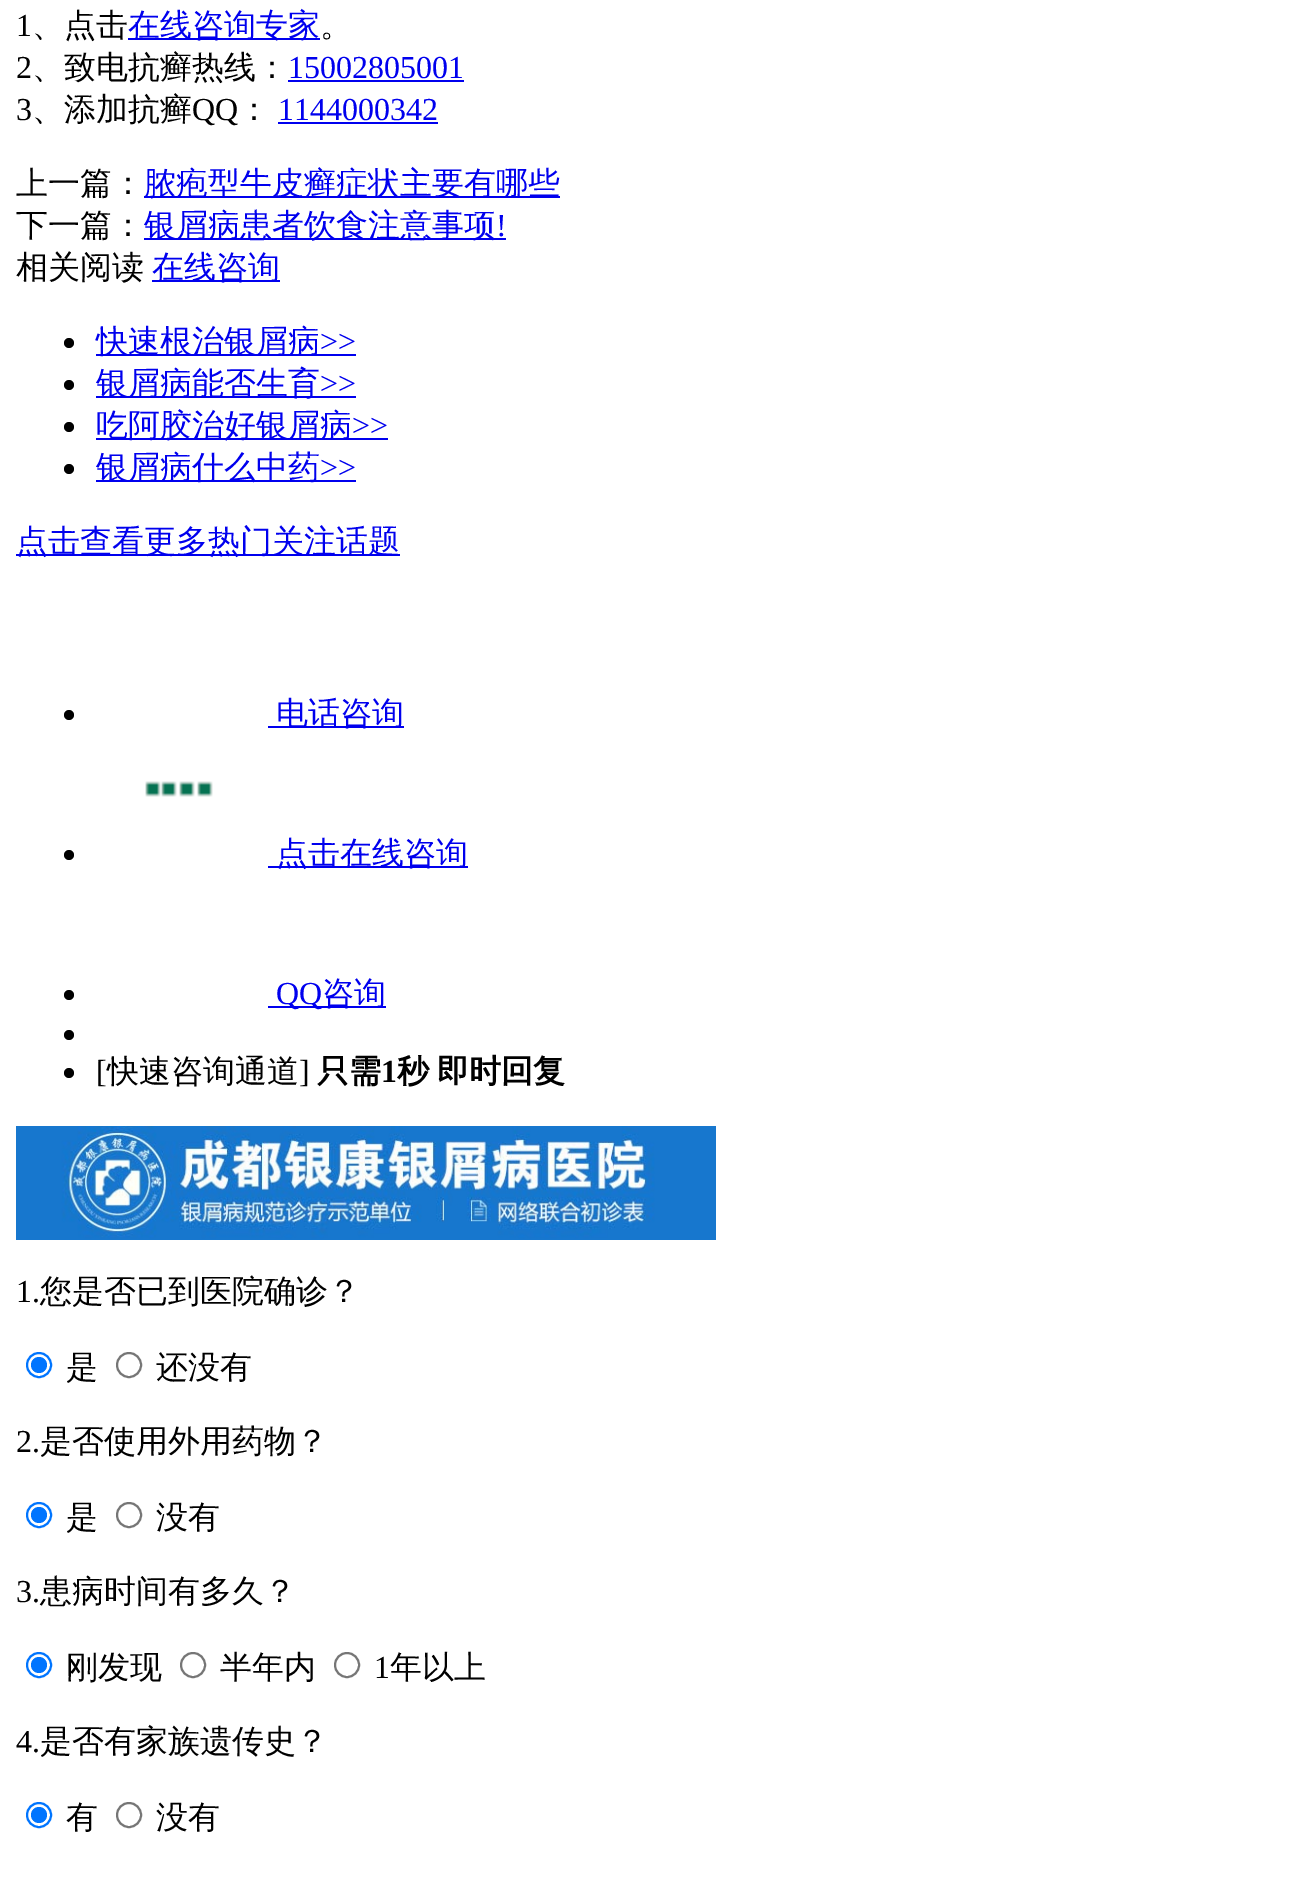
%!PS-Adobe-3.0
%%BoundingBox: 0 0 1311 1890
%%LanguageLevel: 3
%%Pages: 1
%%EndComments
%%BeginProlog
/m { moveto } bind def
/f { fill } bind def
/S { stroke } bind def
/w { setlinewidth } bind def
/fn { [ exch dup neg 0 0 3 -1 roll 0 0 ] selectfont } def
/tx { moveto show } def
/bx { rectfill } def
/ci { newpath 0 360 arc closepath } def
/im { 5 dict begin { /h /w /y /x /name } { exch def } forall
  gsave x y translate w h scale
  w h 8 [w 0 0 h 0 0] name (r) file false 3 colorimage grestore end } def
%%EndProlog
%%BeginSetup
<< /PageSize [1311 1890] >> setpagedevice
%%EndSetup
%%Page: 1 1
0 1890 translate 1 -1 scale
4 setmiterlimit
1 setgray
0 0 1311 1890 bx
/LiberationSerif-Regular 32 fn
0 setgray
(1) 16 36 tx
/WenQuanYiZenHei-Medium 32 fn
(、点击) 32 36 tx
0 0 0.933 setrgbcolor
128 38 192 2 bx
(在线咨询专家) 128 36 tx
0 setgray
(。) 320 36 tx
/LiberationSerif-Regular 32 fn
(2) 16 78 tx
/WenQuanYiZenHei-Medium 32 fn
(、致电抗癣热线：) 32 78 tx
/LiberationSerif-Regular 32 fn
0 0 0.933 setrgbcolor
(15002805001) 288 78 tx
288 80 176 2 bx
0 setgray
(3) 16 120 tx
/WenQuanYiZenHei-Medium 32 fn
(、添加抗癣) 32 120 tx
/LiberationSerif-Regular 32 fn
(QQ) 192 120 tx
/WenQuanYiZenHei-Medium 32 fn
(：) 238 120 tx
/LiberationSerif-Regular 32 fn
0 0 0.933 setrgbcolor
(1144000342) 278 120 tx
278 122 160 2 bx
/WenQuanYiZenHei-Medium 32 fn
0 setgray
(上一篇：) 16 194 tx
0 0 0.933 setrgbcolor
144 196 416 2 bx
(脓疱型牛皮癣症状主要有哪些) 144 194 tx
0 setgray
(下一篇：) 16 236 tx
0 0 0.933 setrgbcolor
144 238 362 2 bx
(银屑病患者饮食注意事项) 144 236 tx
/LiberationSerif-Regular 32 fn
(!) 496 236 tx
/WenQuanYiZenHei-Medium 32 fn
0 setgray
(相关阅读) 16 278 tx
0 0 0.933 setrgbcolor
152 280 128 2 bx
(在线咨询) 152 278 tx
0 setgray
69 343 5 ci f
0 0 0.933 setrgbcolor
96 354 260 2 bx
(快速根治银屑病) 96 352 tx
/LiberationSerif-Regular 32 fn
(>>) 320 352 tx
0 setgray
69 385 5 ci f
0 0 0.933 setrgbcolor
96 396 260 2 bx
/WenQuanYiZenHei-Medium 32 fn
(银屑病能否生育) 96 394 tx
/LiberationSerif-Regular 32 fn
(>>) 320 394 tx
0 setgray
69 427 5 ci f
0 0 0.933 setrgbcolor
96 438 292 2 bx
/WenQuanYiZenHei-Medium 32 fn
(吃阿胶治好银屑病) 96 436 tx
/LiberationSerif-Regular 32 fn
(>>) 352 436 tx
0 setgray
69 469 5 ci f
0 0 0.933 setrgbcolor
96 480 260 2 bx
/WenQuanYiZenHei-Medium 32 fn
(银屑病什么中药) 96 478 tx
/LiberationSerif-Regular 32 fn
(>>) 320 478 tx
16 554 384 2 bx
/WenQuanYiZenHei-Medium 32 fn
(点击查看更多热门关注话题) 16 552 tx
0 setgray
69 715 5 ci f
0 0 0.933 setrgbcolor
268 726 136 2 bx
(电话咨询) 276 724 tx
(image0.raw) 145 781 68 16 im
0 setgray
69 855 5 ci f
0 0 0.933 setrgbcolor
268 866 200 2 bx
(点击在线咨询) 276 864 tx
0 setgray
69 995 5 ci f
0 0 0.933 setrgbcolor
268 1006 118 2 bx
/LiberationSerif-Regular 32 fn
(QQ) 276 1004 tx
/WenQuanYiZenHei-Medium 32 fn
(咨询) 322 1004 tx
0 setgray
69 1035 5 ci f
69 1073 5 ci f
/LiberationSerif-Regular 32 fn
([) 96 1082 tx
/WenQuanYiZenHei-Medium 32 fn
(快速咨询通道) 107 1082 tx
/LiberationSerif-Regular 32 fn
(]) 299 1082 tx
/WenQuanYiZenHei-Bold 32 fn
(只需) 317 1082 tx
/LiberationSerif-Bold 32 fn
(1) 381 1082 tx
/WenQuanYiZenHei-Bold 32 fn
397 1082 m -2 0 32 (秒 即时回复) widthshow
(image1.raw) 16 1126 700 114 im
/LiberationSerif-Regular 32 fn
(1.) 16 1302 tx
/WenQuanYiZenHei-Medium 32 fn
(您是否已到医院确诊？) 40 1302 tx
0 0.459 1 setrgbcolor
2 w
39 1365 12 ci S
39 1365 8 ci f
0 setgray
(是) 66 1378 tx
0.463 setgray
129 1365 12 ci S
0 setgray
(还没有) 156 1378 tx
/LiberationSerif-Regular 32 fn
(2.) 16 1452 tx
/WenQuanYiZenHei-Medium 32 fn
(是否使用外用药物？) 40 1452 tx
0 0.459 1 setrgbcolor
39 1515 12 ci S
39 1515 8 ci f
0 setgray
(是) 66 1528 tx
0.463 setgray
129 1515 12 ci S
0 setgray
(没有) 156 1528 tx
/LiberationSerif-Regular 32 fn
(3.) 16 1602 tx
/WenQuanYiZenHei-Medium 32 fn
(患病时间有多久？) 40 1602 tx
0 0.459 1 setrgbcolor
39 1665 12 ci S
39 1665 8 ci f
0 setgray
(刚发现) 66 1678 tx
0.463 setgray
193 1665 12 ci S
0 setgray
(半年内) 220 1678 tx
0.463 setgray
347 1665 12 ci S
/LiberationSerif-Regular 32 fn
0 setgray
(1) 374 1678 tx
/WenQuanYiZenHei-Medium 32 fn
(年以上) 390 1678 tx
/LiberationSerif-Regular 32 fn
(4.) 16 1752 tx
/WenQuanYiZenHei-Medium 32 fn
(是否有家族遗传史？) 40 1752 tx
0 0.459 1 setrgbcolor
39 1815 12 ci S
39 1815 8 ci f
0 setgray
(有) 66 1828 tx
0.463 setgray
129 1815 12 ci S
0 setgray
(没有) 156 1828 tx
showpage
%%EOF
